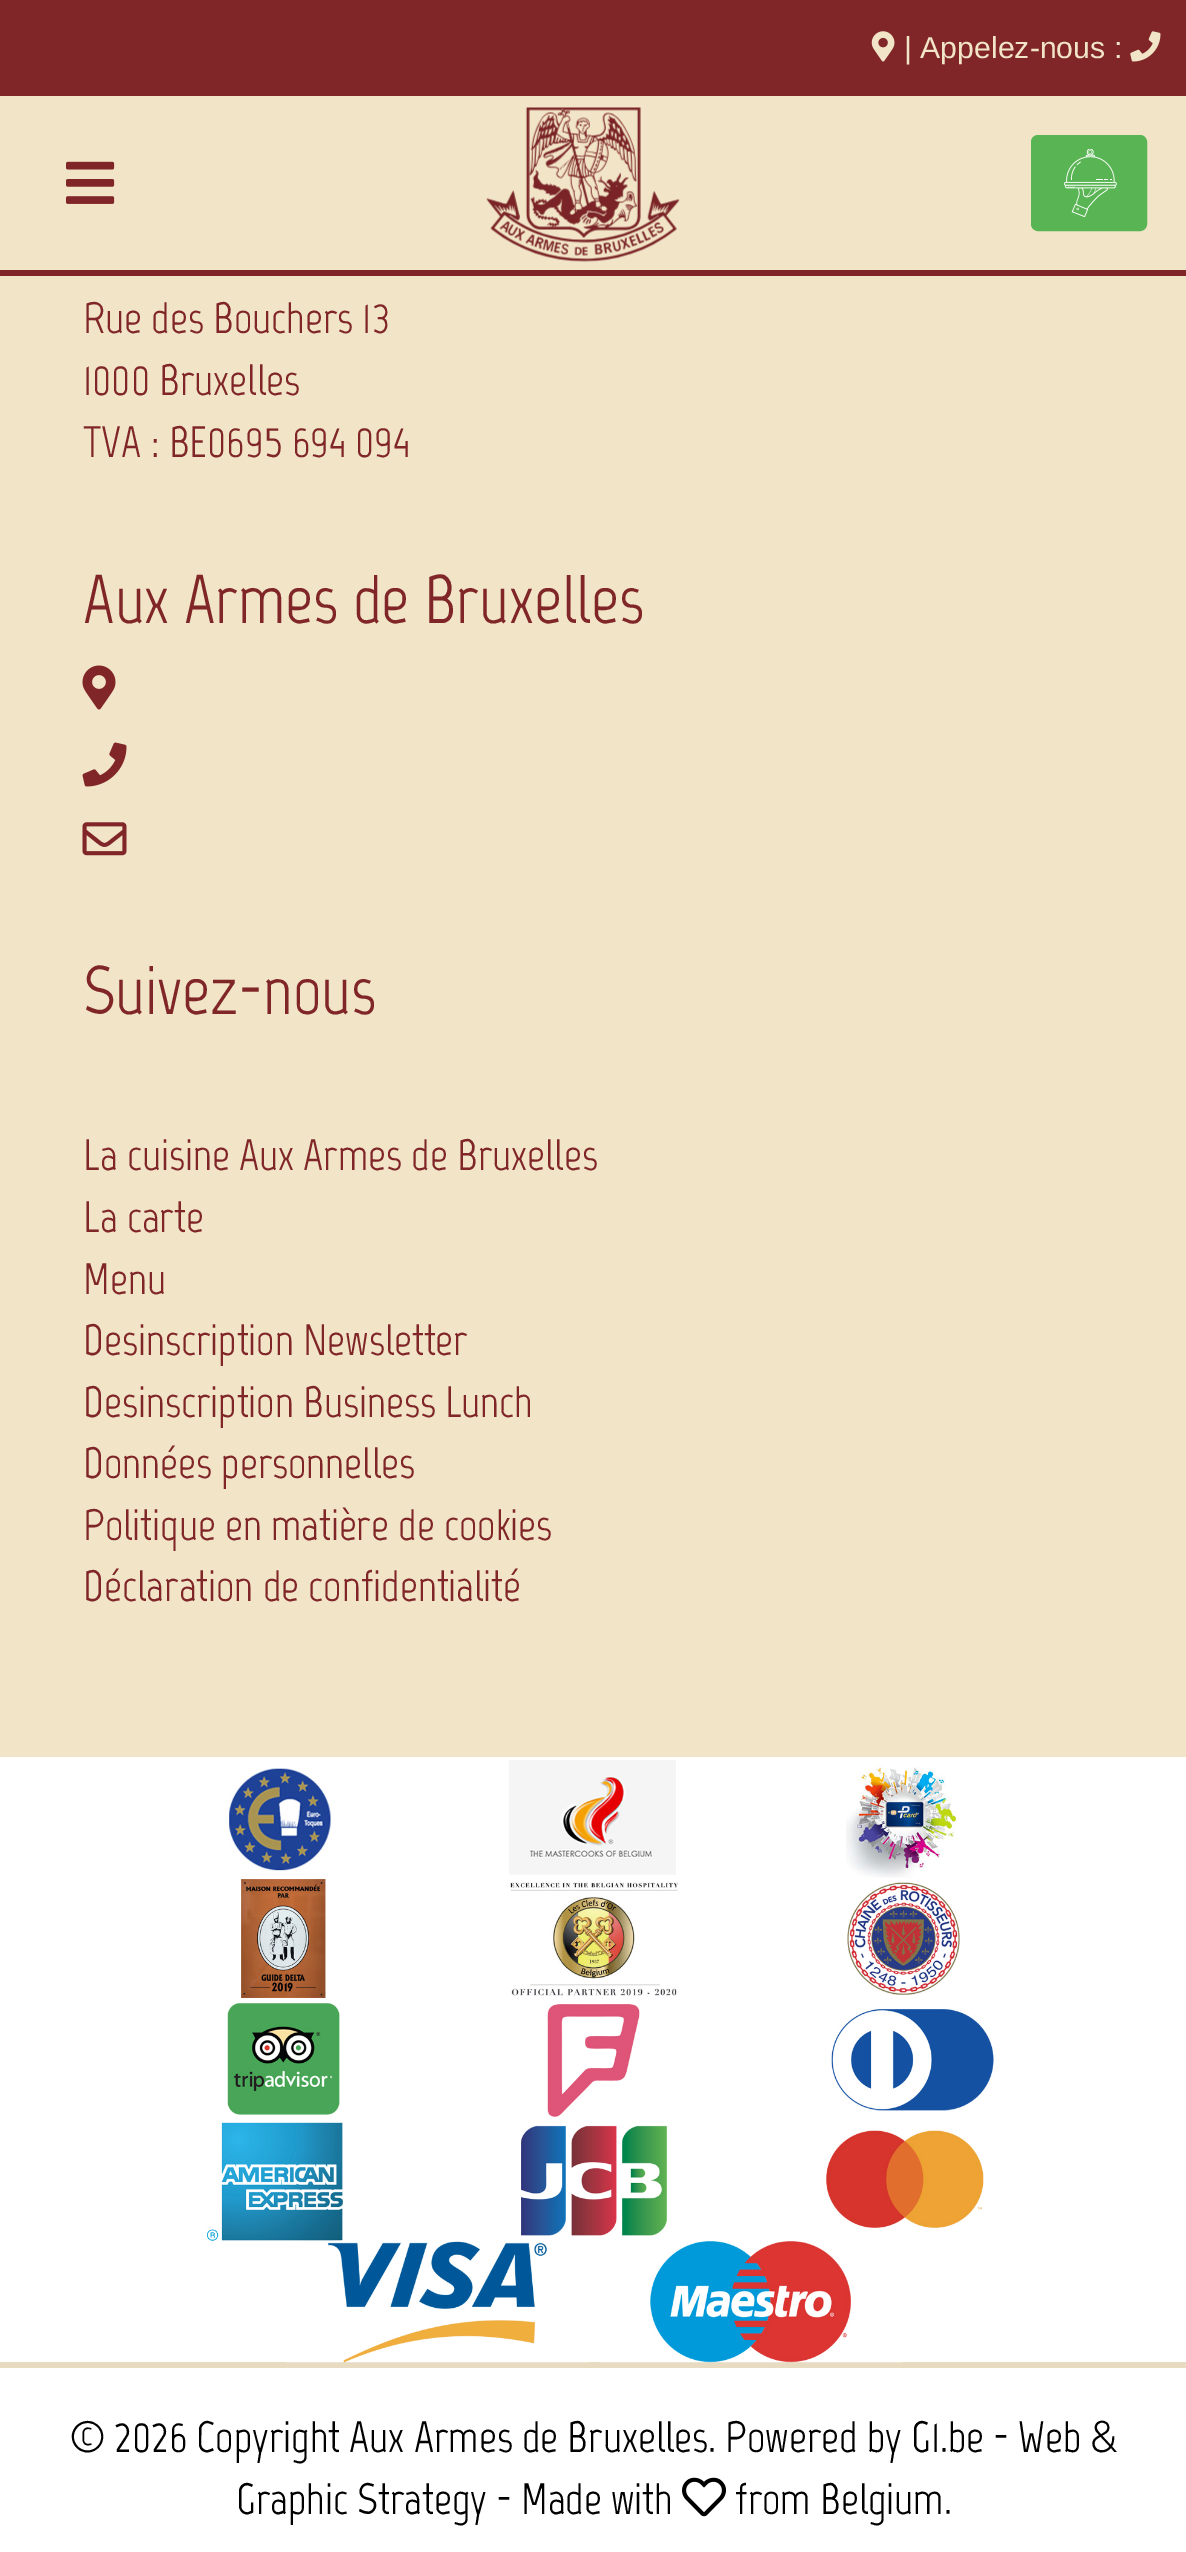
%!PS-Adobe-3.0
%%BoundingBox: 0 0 1186 2552
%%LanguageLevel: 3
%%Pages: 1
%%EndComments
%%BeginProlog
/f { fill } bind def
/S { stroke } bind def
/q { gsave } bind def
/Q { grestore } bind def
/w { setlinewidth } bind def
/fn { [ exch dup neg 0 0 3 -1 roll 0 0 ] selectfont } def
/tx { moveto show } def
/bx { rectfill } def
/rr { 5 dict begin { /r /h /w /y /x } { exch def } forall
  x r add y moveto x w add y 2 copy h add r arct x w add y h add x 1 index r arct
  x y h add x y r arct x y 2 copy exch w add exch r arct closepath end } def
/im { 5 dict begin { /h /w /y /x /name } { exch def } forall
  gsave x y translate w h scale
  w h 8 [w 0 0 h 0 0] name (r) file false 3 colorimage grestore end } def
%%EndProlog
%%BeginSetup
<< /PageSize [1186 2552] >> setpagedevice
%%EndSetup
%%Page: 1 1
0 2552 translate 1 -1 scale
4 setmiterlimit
1 setgray
0 0 1186 2552 bx
0.949 0.898 0.78 setrgbcolor
0 96 1186 174 bx
0.502 0.149 0.161 setrgbcolor
0 270 1186 6 bx
0 0 1186 96 bx
(image0.raw) 871 31 24 31 im
/LiberationSans-Regular 30.25 fn
0.949 0.898 0.78 setrgbcolor
(| Appelez-nous :) 904 58 tx
(image1.raw) 1130 31 31 31 im
(image2.raw) 66 161 49 43 im
(image3.raw) 486 107 194 155 im
0.349 0.71 0.329 setrgbcolor
1032.5 136.5 113 93 5.5 rr q f Q
3 w
S
(image4.raw) 1063 149 54 68 im
0.949 0.898 0.78 setrgbcolor
0 276 1186 1481 bx
/Marvel-Regular 44 fn
0.502 0.149 0.161 setrgbcolor
(Rue des Bouchers 13) 83 333 tx
(1000 Bruxelles) 83 395 tx
(TVA : BE0695 694 094) 83 457 tx
/Marvel-Regular 68.75 fn
(Aux Armes de Bruxelles) 83 623 tx
(image5.raw) 82 665 34 45 im
(image6.raw) 82 742 45 45 im
(image7.raw) 82 822 45 34 im
(Suivez-nous) 83 1014 tx
/Marvel-Regular 44 fn
(La cuisine Aux Armes de Bruxelles) 83 1170 tx
(La carte) 83 1232 tx
(Menu) 83 1294 tx
(Desinscription Newsletter) 83 1355 tx
(Desinscription Business Lunch) 83 1417 tx
(Données personnelles) 83 1478 tx
(Politique en matière de cookies) 83 1540 tx
(Déclaration de confidentialité) 83 1601 tx
(image8.raw) 229 1768 102 103 im
(image9.raw) 509 1760 167 115 im
(image10.raw) 846 1764 111 114 im
(image11.raw) 241 1879 85 119 im
(image12.raw) 510 1881 169 115 im
(image13.raw) 847 1882 113 113 im
(image14.raw) 227 2003 113 112 im
(image15.raw) 547 2004 93 113 im
(image16.raw) 831 2009 163 102 im
(image17.raw) 207 2122 136 119 im
(image18.raw) 521 2125 147 111 im
(image19.raw) 826 2130 158 98 im
0.906 0.859 0.757 setrgbcolor
0 2362 1186 6 bx
(image20.raw) 286 2241 303 122 im
(image21.raw) 599 2241 303 122 im
0 setgray
(© 2026 Copyright Aux Armes de Bruxelles. Powered by G1.be - Web &) 70 2452 tx
(Graphic Strategy - Made with) 236 2514 tx
(image22.raw) 682 2477 44 40 im
(from Belgium.) 735 2514 tx
showpage
%%EOF
